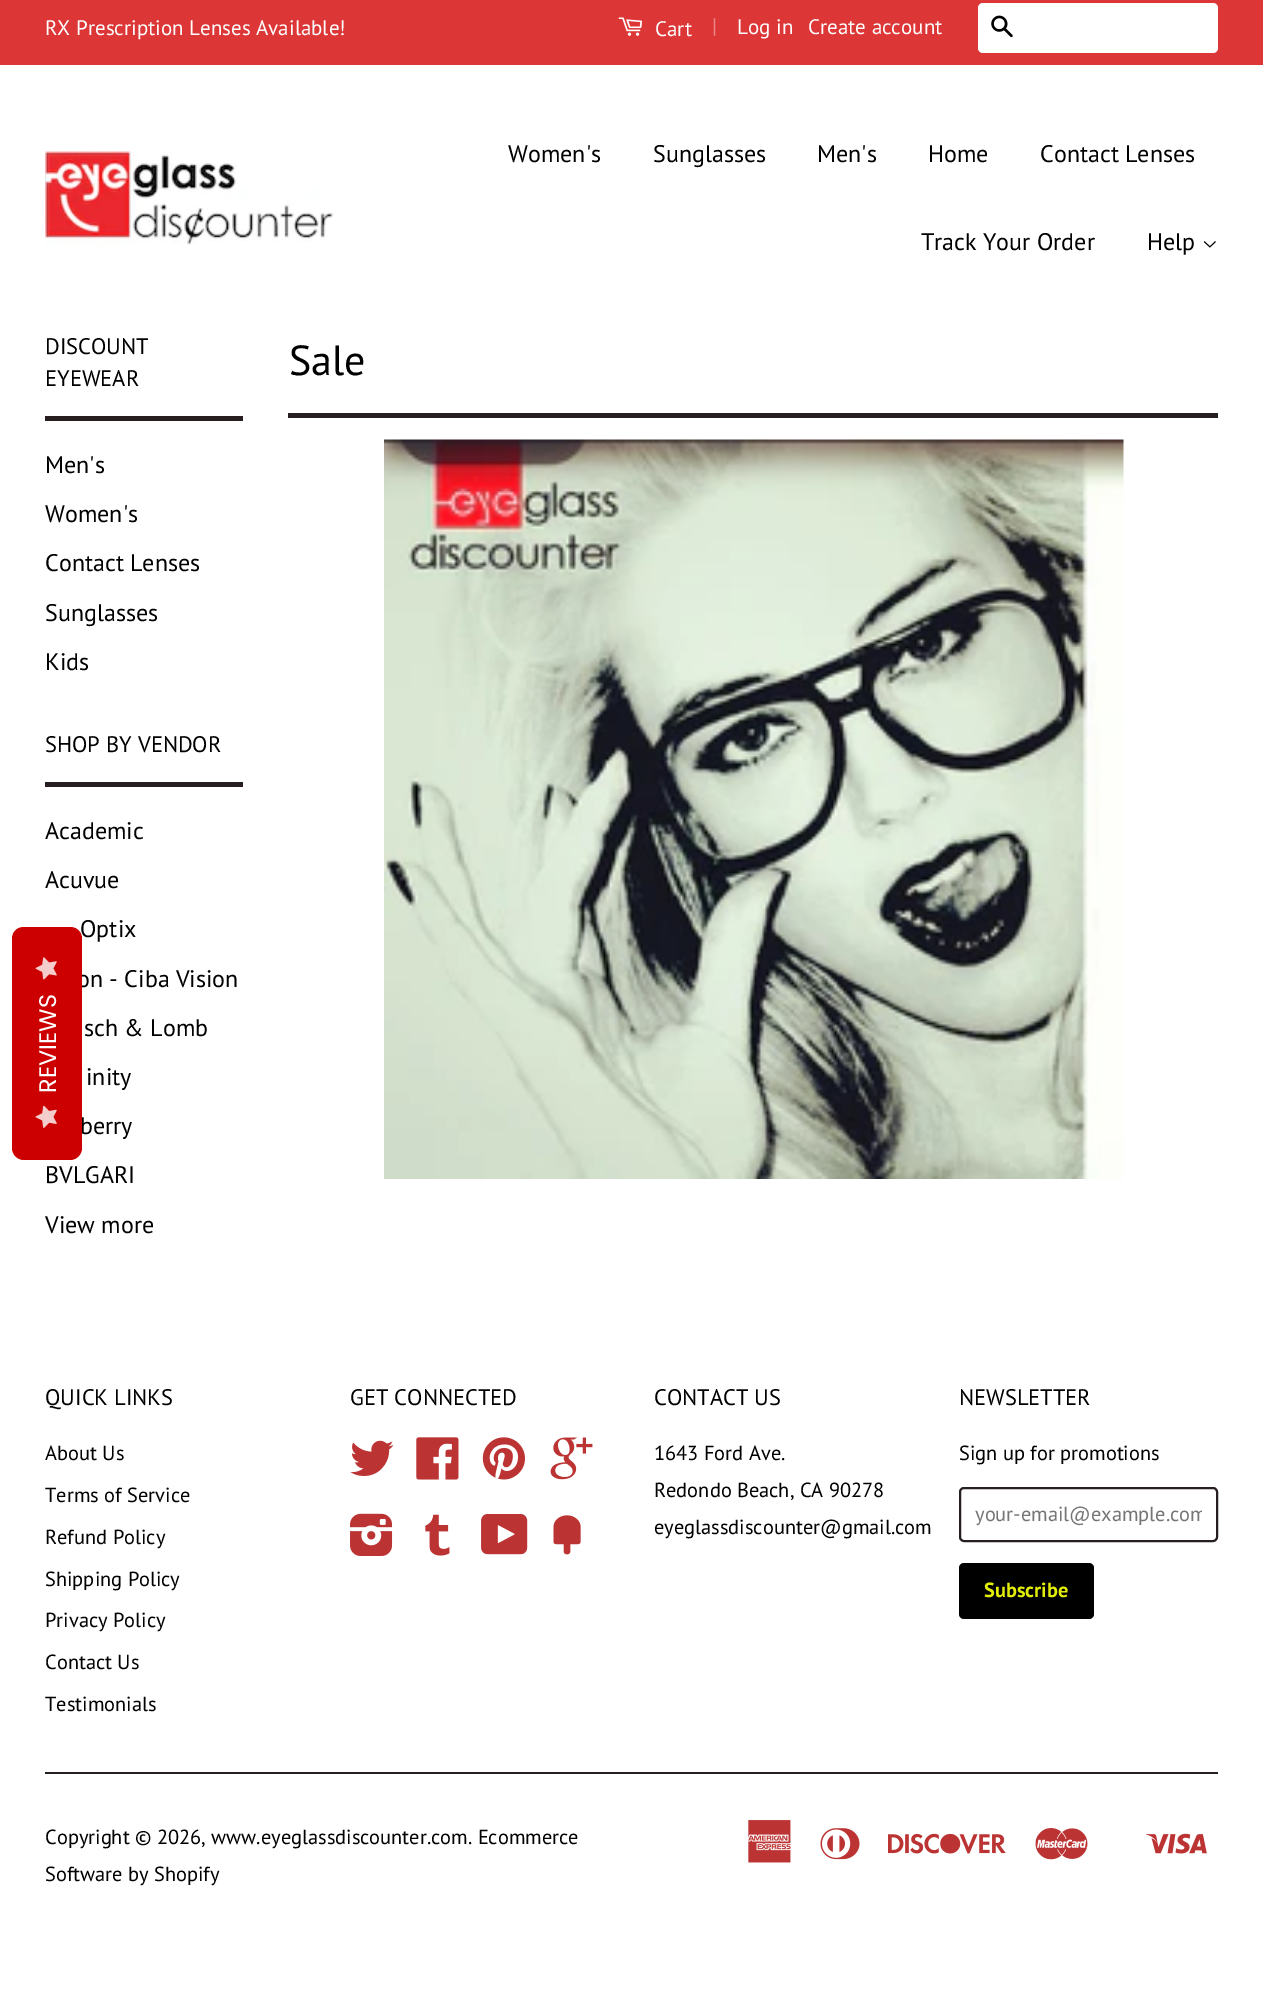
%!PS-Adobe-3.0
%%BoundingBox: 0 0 1263 2015
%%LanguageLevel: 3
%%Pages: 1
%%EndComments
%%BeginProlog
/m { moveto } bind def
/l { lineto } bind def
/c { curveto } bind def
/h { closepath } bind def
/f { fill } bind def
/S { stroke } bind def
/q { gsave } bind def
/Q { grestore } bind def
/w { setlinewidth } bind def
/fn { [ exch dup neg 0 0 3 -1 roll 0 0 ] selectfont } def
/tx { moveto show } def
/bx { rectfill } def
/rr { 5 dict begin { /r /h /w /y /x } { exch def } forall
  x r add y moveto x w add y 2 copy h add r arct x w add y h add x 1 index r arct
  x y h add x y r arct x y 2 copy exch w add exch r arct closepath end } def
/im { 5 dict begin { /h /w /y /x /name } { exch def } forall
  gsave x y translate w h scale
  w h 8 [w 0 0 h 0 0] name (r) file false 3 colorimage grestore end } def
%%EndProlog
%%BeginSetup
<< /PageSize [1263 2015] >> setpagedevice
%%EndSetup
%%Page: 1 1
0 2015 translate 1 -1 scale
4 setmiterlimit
1 setgray
0 0 1263 2015 bx
0.867 0.212 0.212 setrgbcolor
0 0 1263 65 bx
/PTSans-Regular 21 fn
1 setgray
(RX Prescription Lenses Available!) 45 35 tx
(image0.raw) 618 17 25 19 im
(Cart) 655 36 tx
0.922 0.525 0.525 setrgbcolor
(|) 712 33 tx
1 setgray
(Log in) 737 34 tx
(Create account) 808 34 tx
978 3 240 50 5 rr f
(image1.raw) 991 15 22 23 im
(image2.raw) 45 151 289 94 im
/PTSans-Regular 24 fn
0 setgray
(Women's) 508 162 tx
(Sunglasses) 653 162 tx
(Men's) 817 162 tx
(Home) 928 162 tx
(Contact Lenses) 1040 162 tx
(Track Your Order) 921 250 tx
(Help) 1147 250 tx
(image3.raw) 1203 241 13 7 im
0.153 0.122 0.122 setrgbcolor
45 416 198 5 bx
/PTSans-Regular 22.5 fn
0 setgray
(DISCOUNT) 45 354 tx
(EYEWEAR) 45 386 tx
/PTSans-Regular 24 fn
(Men's) 45 473 tx
(Women's) 45 522 tx
(Contact Lenses) 45 571 tx
(Sunglasses) 45 621 tx
(Kids) 45 670 tx
0.153 0.122 0.122 setrgbcolor
45 782 198 5 bx
/PTSans-Regular 22.5 fn
0 setgray
(SHOP BY VENDOR) 45 752 tx
/PTSans-Regular 24 fn
(Academic) 45 839 tx
(Acuvue) 45 888 tx
(Optix) 80 937 tx
(on - Ciba Vision) 77 987 tx
(sch & Lomb) 84 1036 tx
(inity) 86 1085 tx
(berry) 80 1134 tx
(BVLGARI) 45 1183 tx
(View more) 45 1233 tx
0.153 0.122 0.122 setrgbcolor
288 413 930 5 bx
/PTSans-Regular 42 fn
0 setgray
(Sale) 289 375 tx
(image4.raw) 384 439 740 740 im
0.8 0 0 setrgbcolor
12 1148 m 12 939 l 12 932 17 927 24 927 c 70 927 l 77 927 82 932 82 939 c 82 1148 l 82 1154 77 1160 70 1160 c 24 1160 l 17 1160 12 1154 12 1148 c h f
(image5.raw) 35 957 22 23 im
/Poppins-Regular 24 fn
1 setgray
q 56 1093 translate -90 rotate 0 0 m (REVIEWS) show Q
(image6.raw) 35 1105 22 23 im
/PTSans-Regular 22.5 fn
0 setgray
(QUICK LINKS) 45 1405 tx
/PTSans-Regular 20.4 fn
(About Us) 45 1460 tx
(Terms of Service) 45 1502 tx
(Refund Policy) 45 1544 tx
(Shipping Policy) 45 1586 tx
(Privacy Policy) 45 1627 tx
(Contact Us) 45 1669 tx
(Testimonials) 45 1711 tx
/PTSans-Regular 22.5 fn
(GET CONNECTED) 350 1405 tx
(image7.raw) 350 1440 44 36 im
(image8.raw) 416 1437 43 43 im
(image9.raw) 482 1437 43 43 im
(image10.raw) 550 1437 43 43 im
(image11.raw) 350 1513 43 43 im
(image12.raw) 425 1514 25 42 im
(image13.raw) 481 1514 47 41 im
(image14.raw) 553 1515 28 40 im
(CONTACT US) 654 1405 tx
/PTSans-Regular 20.4 fn
(1643 Ford Ave.) 654 1460 tx
(Redondo Beach, CA 90278) 654 1497 tx
(eyeglassdiscounter@gmail.com) 654 1534 tx
/PTSans-Regular 22.5 fn
(NEWSLETTER) 959 1405 tx
/PTSans-Regular 20.4 fn
(Sign up for promotions) 959 1460 tx
0.153 0.122 0.122 setrgbcolor
2 w
960 1488 257 53 4 rr S
q
975 1500 227 27 rectclip
0.459 setgray
(your-email@example.com) 975 1521 tx
Q
0 setgray
959 1563 135 56 5 rr f
/PTSans-Bold 20.4 fn
0.89 0.933 0.027 setrgbcolor
(Subscribe) 984 1597 tx
0.153 0.122 0.122 setrgbcolor
45 1772 1173 2 bx
/PTSans-Regular 20.4 fn
0 setgray
(Copyright © 2026, www.eyeglassdiscounter.com. Ecommerce) 45 1844 tx
(Software by Shopify) 45 1881 tx
(image15.raw) 748 1820 43 43 im
(image16.raw) 820 1828 40 32 im
(image17.raw) 888 1833 118 21 im
(image18.raw) 1035 1828 53 32 im
(image19.raw) 1146 1833 61 21 im
showpage
%%EOF
